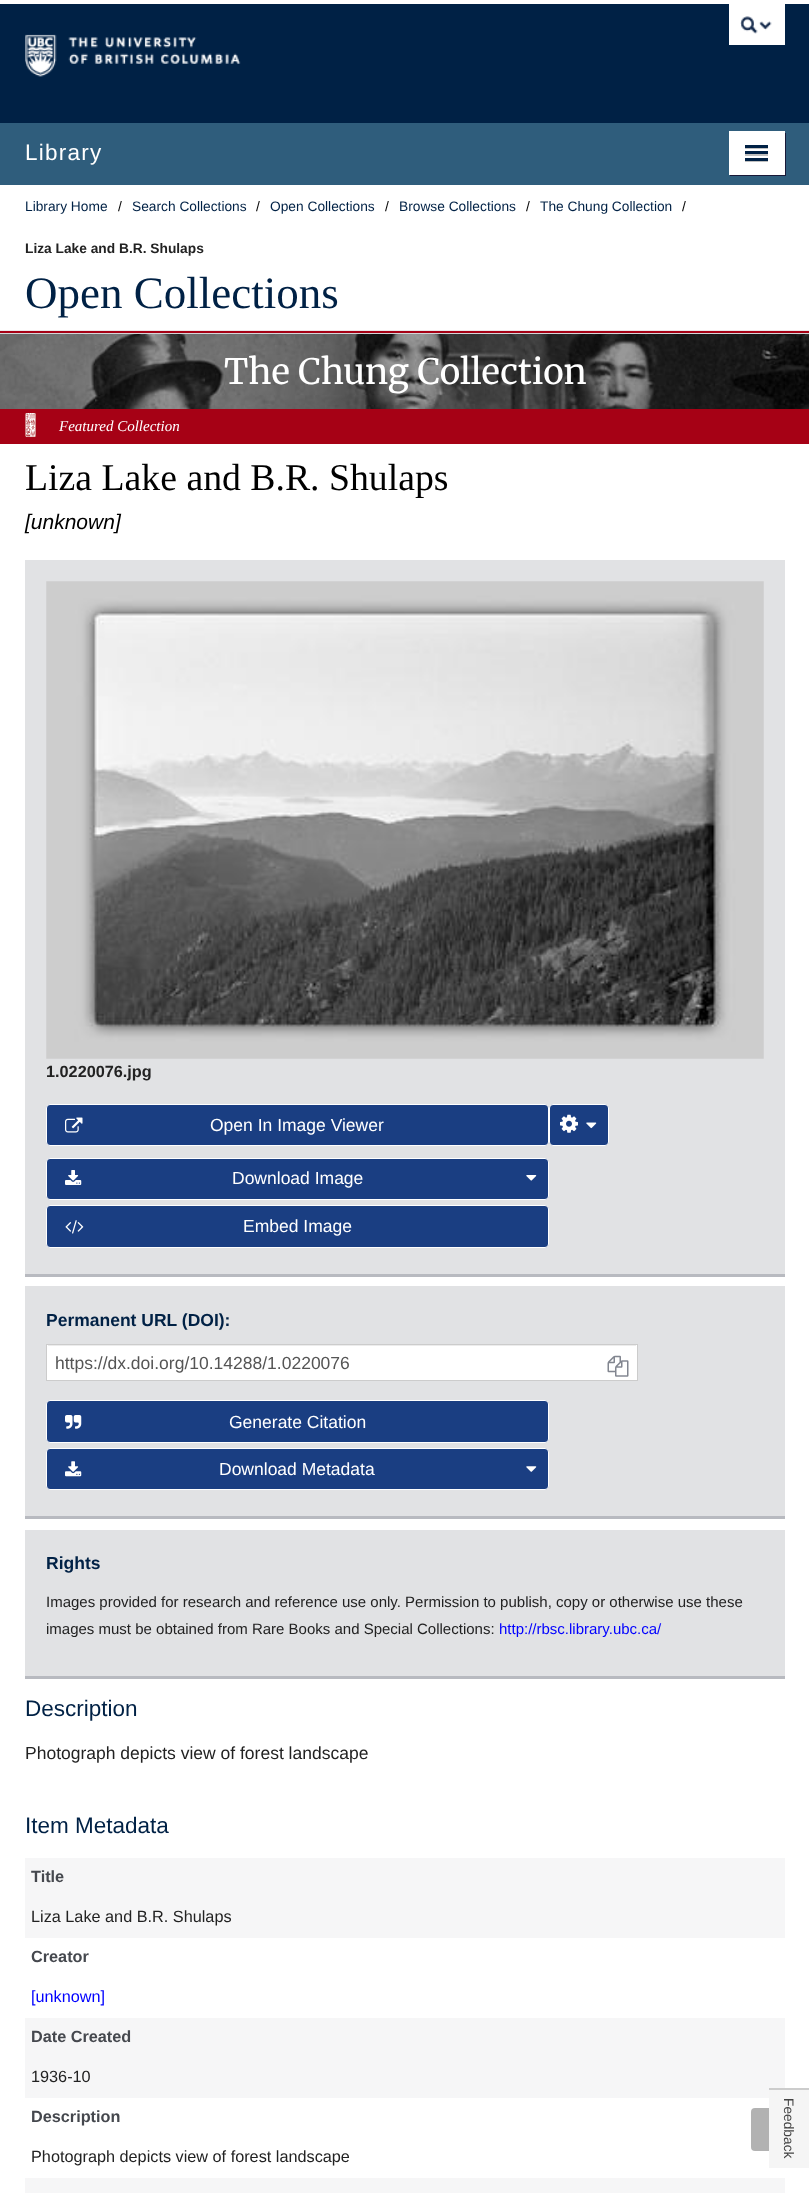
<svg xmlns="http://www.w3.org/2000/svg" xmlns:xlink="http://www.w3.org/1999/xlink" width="809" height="2193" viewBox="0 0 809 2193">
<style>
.cls-1{font:22.5px Liberation Sans;letter-spacing:1.25px;fill:#ffffff}
.cls-2{font:13.75px Liberation Sans;fill:#002145}
.cls-3{font:13.75px Liberation Sans;fill:#000000}
.cls-4{font:bold 13.75px Liberation Sans;fill:#222222}
.cls-5{font:45px Liberation Serif;fill:#002145}
.cls-6{font:35px Merriweather;fill:#ffffff}
.cls-7{font:italic 15px Liberation Serif;fill:#ffffff}
.cls-8{font:37.75px Liberation Serif;fill:#000000}
.cls-9{font:italic 21px Liberation Sans;fill:#000000}
.cls-10{font:bold 16.25px Liberation Sans;fill:#222222}
.cls-11{font:17.5px Liberation Sans;fill:#ffffff}
.cls-12{font:bold 17.5px Liberation Sans;fill:#002145}
.cls-13{font:17.5px Liberation Sans;fill:#555555}
.cls-14{font:15px Liberation Sans;fill:#222222}
.cls-15{font:15px Liberation Sans;fill:#0000ff}
.cls-16{font:22.5px Liberation Sans;fill:#002145}
.cls-17{font:17.5px Liberation Sans;fill:#222222}
.cls-18{font:bold 16.25px Liberation Sans;fill:#45484e}
.cls-19{font:16.25px Liberation Sans;fill:#222222}
.cls-20{font:16.25px Liberation Sans;fill:#0000ff}
.cls-21{font:13.75px Liberation Sans;fill:#444444}
</style>
<rect width="100%" height="100%" fill="#ffffff"/>
<rect fill="#002145" x="0" y="4" width="809" height="119"/>
<image xlink:href="image0.png" x="25" y="34" width="216" height="43"/>
<rect fill="#ffffff" x="729" y="4" width="56" height="41"/>
<image xlink:href="image1.png" x="740" y="16" width="32" height="18"/>
<rect fill="#2f5d7c" x="0" y="123" width="809" height="62"/>
<rect fill="#191938" filter="blur(0.5px)" x="730" y="133" width="56" height="43"/>
<rect fill="#ffffff" x="729" y="131" width="56" height="44"/>
<path fill="#bfbfbf" d="M745 147.5V149H768V146H767.5V147.5Z"/>
<rect fill="#002145" x="745" y="145" width="23" height="3"/>
<path fill="#bfbfbf" d="M745 154V156H768V153H767.5V154Z"/>
<rect fill="#002145" x="745" y="151" width="23" height="3"/>
<path fill="#bfbfbf" d="M745 160V162H768V159H767.5V160Z"/>
<rect fill="#002145" x="745" y="158" width="23" height="3"/>
<rect fill="#a60115" x="0" y="331" width="809" height="2"/>
<rect fill="#e9e9eb" x="0" y="330" width="809" height="1"/>
<rect fill="#d3d5d8" x="0" y="333" width="809" height="1"/>
<image xlink:href="image2.png" x="0" y="334" width="809" height="75"/>
<rect fill="#000000" fill-opacity="0.4" x="0" y="334" width="809" height="75"/>
<rect fill="#a60115" x="0" y="409" width="809" height="35"/>
<image xlink:href="image3.png" x="25" y="413" width="11" height="25"/>
<rect fill="#e1e2e4" x="25" y="560" width="760" height="714"/>
<rect fill="#b8bac0" x="25" y="1274" width="760" height="3"/>
<image xlink:href="image4.png" x="46" y="581" width="718" height="478"/>
<rect fill="#1a3e82" stroke="#ffffff" x="46.5" y="1104.5" width="502" height="41" rx="3.5"/>
<image xlink:href="image5.png" x="65" y="1117" width="18" height="16"/>
<rect fill="#1a3e82" stroke="#ffffff" x="549.5" y="1104.5" width="59" height="41" rx="3.5"/>
<image xlink:href="image6.png" x="560" y="1114" width="18" height="19"/>
<image xlink:href="image7.png" x="586" y="1122" width="11" height="7"/>
<rect fill="#1a3e82" stroke="#ffffff" x="46.5" y="1158.5" width="502" height="41" rx="3.5"/>
<image xlink:href="image8.png" x="65" y="1170" width="17" height="15"/>
<image xlink:href="image9.png" x="526" y="1175" width="11" height="6"/>
<rect fill="#1a3e82" stroke="#ffffff" x="46.5" y="1205.5" width="502" height="42" rx="3.5"/>
<image xlink:href="image10.png" x="65" y="1220" width="19" height="14"/>
<rect fill="#e1e2e4" x="25" y="1286" width="760" height="230"/>
<rect fill="#b8bac0" x="25" y="1516" width="760" height="3"/>
<rect fill="#ffffff" x="47" y="1345" width="590" height="35"/>
<rect fill="#ececec" x="48" y="1345" width="588" height="1"/>
<rect fill="none" stroke="#cccccc" x="46.5" y="1344.5" width="591" height="36"/>
<image xlink:href="image11.png" x="607" y="1355" width="22" height="22"/>
<rect fill="#1a3e82" stroke="#ffffff" x="46.5" y="1400.5" width="502" height="42" rx="3.5"/>
<image xlink:href="image12.png" x="65" y="1415" width="17" height="14"/>
<rect fill="#1a3e82" stroke="#ffffff" x="46.5" y="1448.5" width="502" height="41" rx="3.5"/>
<image xlink:href="image13.png" x="65" y="1461" width="17" height="16"/>
<image xlink:href="image14.png" x="526" y="1466" width="11" height="6"/>
<rect fill="#e1e2e4" x="25" y="1530" width="760" height="146"/>
<rect fill="#b8bac0" x="25" y="1676" width="760" height="3"/>
<rect fill="#f6f6f7" x="25" y="1858" width="760" height="80"/>
<rect fill="#f6f6f7" x="25" y="2018" width="760" height="80"/>
<rect fill="#f6f6f7" x="25" y="2178" width="760" height="15"/>
<rect fill="#000000" fill-opacity="0.3" filter="blur(0.5px)" x="751" y="2108" width="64" height="43" rx="4"/>
<path fill="#f5f5f5" d="M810 2091V2168H769V2088H808C809 2088 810 2089 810 2091Z"/>
<rect fill="#cccccc" x="769" y="2088" width="40" height="2"/>
<text class="cls-1" x="25" y="160">Library</text>
<text class="cls-2" x="25" y="211">Library Home</text>
<text class="cls-3" x="118" y="211">/</text>
<text class="cls-2" x="132" y="211">Search Collections</text>
<text class="cls-3" x="256" y="211">/</text>
<text class="cls-2" x="270" y="211">Open Collections</text>
<text class="cls-3" x="385" y="211">/</text>
<text class="cls-2" x="399" y="211">Browse Collections</text>
<text class="cls-3" x="526" y="211">/</text>
<text class="cls-2" x="540" y="211">The Chung Collection</text>
<text class="cls-3" x="682" y="211">/</text>
<text class="cls-4" x="25" y="253">Liza Lake and B.R. Shulaps</text>
<text class="cls-5" x="25" y="308">Open Collections</text>
<text class="cls-6" x="224" y="384">The Chung Collection</text>
<text class="cls-7" x="59" y="431">Featured Collection</text>
<text class="cls-8" x="25" y="490">Liza Lake and B.R. Shulaps</text>
<text class="cls-9" x="25" y="529">[unknown]</text>
<text class="cls-10" x="46" y="1077">1.0220076.jpg</text>
<text class="cls-11" x="210" y="1131">Open In Image Viewer</text>
<text class="cls-11" x="232" y="1184">Download Image</text>
<text class="cls-11" x="243" y="1232">Embed Image</text>
<text class="cls-12" x="46" y="1326">Permanent URL (DOI):</text>
<text class="cls-13" x="55" y="1369">https://dx.doi.org/10.14288/1.0220076</text>
<text class="cls-11" x="229" y="1428">Generate Citation</text>
<text class="cls-11" x="219" y="1475">Download Metadata</text>
<text class="cls-12" x="46" y="1569">Rights</text>
<text class="cls-14"><tspan x="46" y="1607">Images provided for research and reference use only. Permission to publish, copy or otherwise use these</tspan><tspan x="46" y="1634">images must be obtained from Rare Books and Special Collections:</tspan></text>
<text class="cls-15" x="499" y="1634">http://rbsc.library.ubc.ca/</text>
<text class="cls-16" x="25" y="1716">Description</text>
<text class="cls-17" x="25" y="1759">Photograph depicts view of forest landscape</text>
<text class="cls-16" x="25" y="1833">Item Metadata</text>
<text class="cls-18" x="31" y="1882">Title</text>
<text class="cls-19" x="31" y="1922">Liza Lake and B.R. Shulaps</text>
<text class="cls-18" x="31" y="1962">Creator</text>
<text class="cls-20" x="31" y="2002">[unknown]</text>
<text class="cls-18" x="31" y="2042">Date Created</text>
<text class="cls-19" x="31" y="2082">1936-10</text>
<text class="cls-18" x="31" y="2122">Description</text>
<text class="cls-19" x="31" y="2162">Photograph depicts view of forest landscape</text>
<text class="cls-21" x="784" y="2098" transform="rotate(90 784 2098)">Feedback</text>
</svg>
